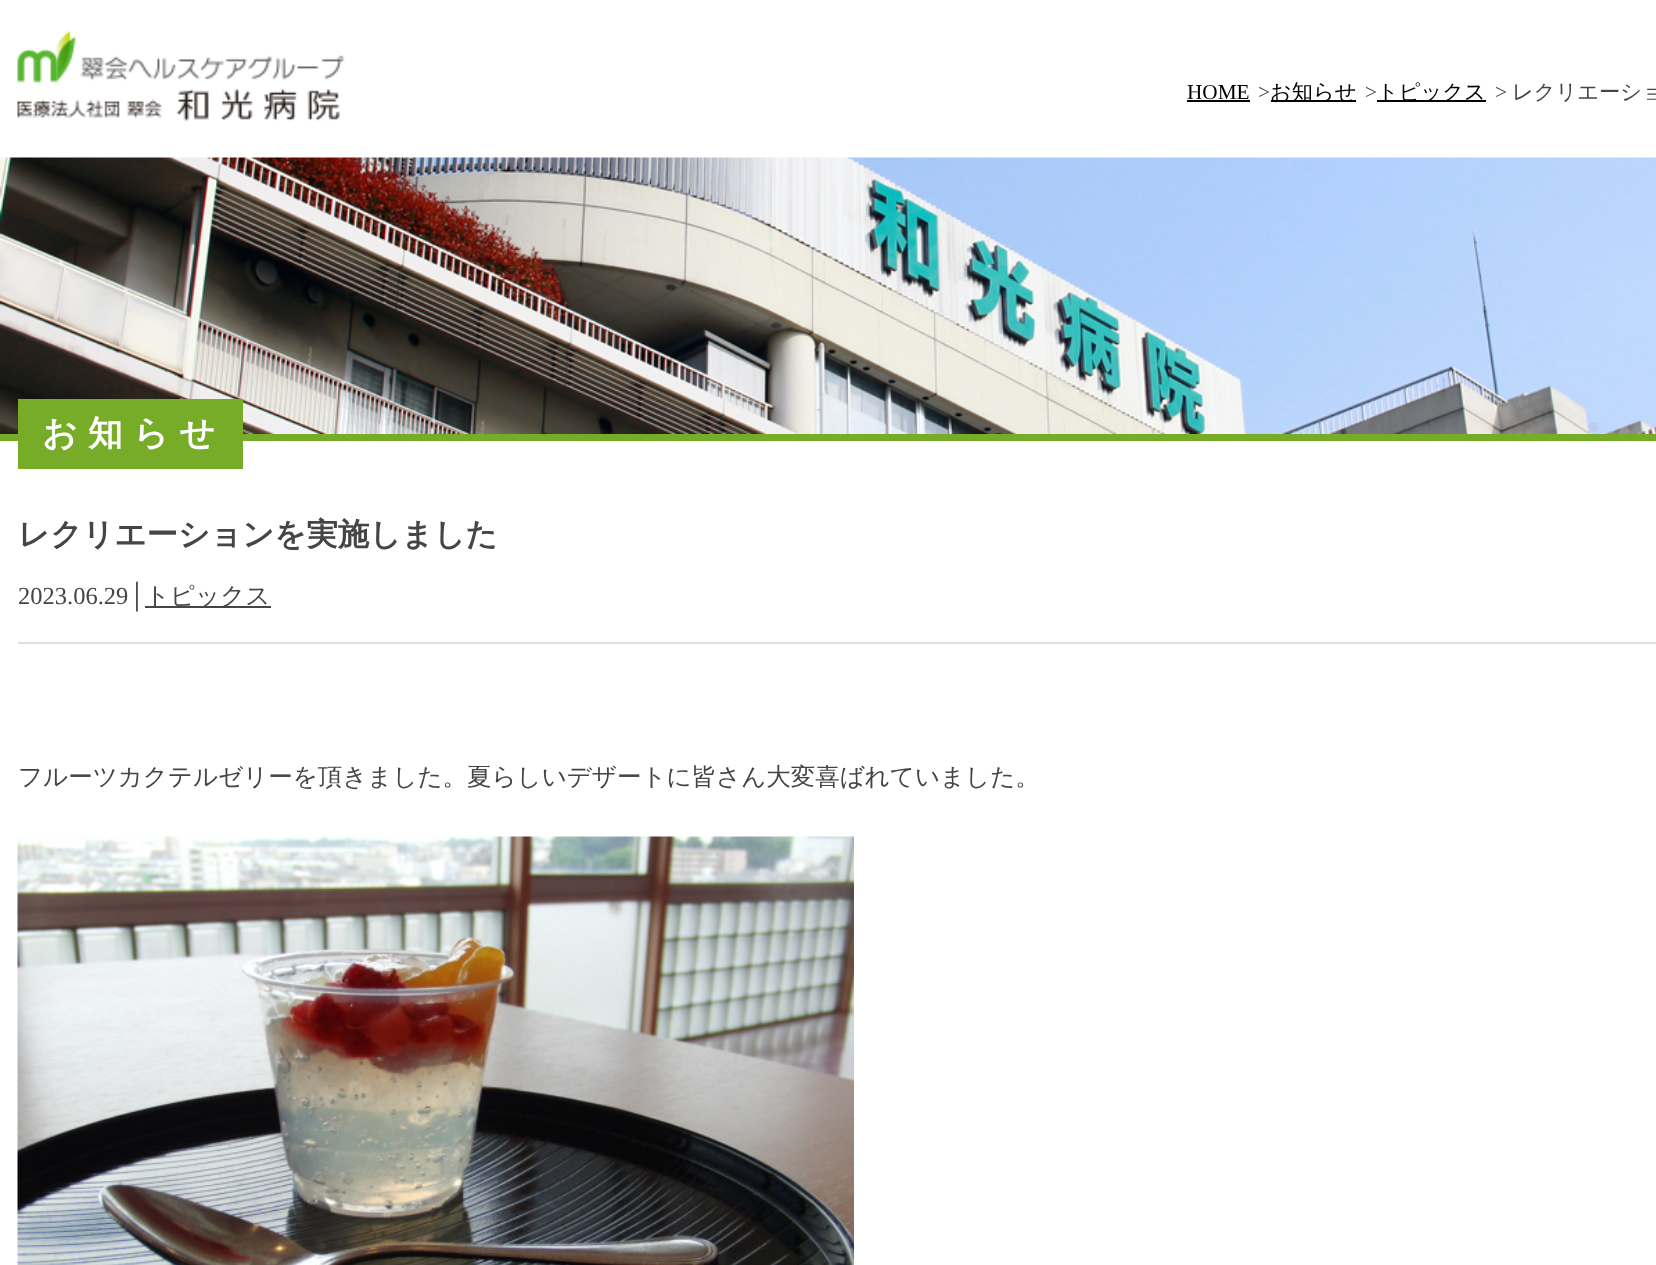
<svg xmlns="http://www.w3.org/2000/svg" xmlns:xlink="http://www.w3.org/1999/xlink" width="1656" height="1265" viewBox="0 0 1656 1265">
<style>
.cls-1{font:21.25px Liberation Serif;fill:#000000}
.cls-2{font:21.25px Liberation Serif;fill:#454545}
.cls-3{font:500 21.25px WenQuanYi Zen Hei;fill:#000000}
.cls-4{font:500 21.25px WenQuanYi Zen Hei;fill:#454545}
.cls-5{font:bold 34.75px WenQuanYi Zen Hei;letter-spacing:10.5px;fill:#ffffff}
.cls-6{font:bold 31.4px WenQuanYi Zen Hei;fill:#454545}
.cls-7{font:24.5px Liberation Serif;fill:#454545}
.cls-8{font:500 24.5px WenQuanYi Zen Hei;fill:#454545}
</style>
<rect width="100%" height="100%" fill="#ffffff"/>
<image xlink:href="image0.png" x="17" y="31" width="328" height="91"/>
<rect fill="#000000" x="1187" y="100" width="63" height="2"/>
<rect fill="#000000" x="1271" y="100" width="85" height="2"/>
<rect fill="#000000" x="1377" y="100" width="109" height="2"/>
<rect fill="#76ac28" x="0" y="434" width="1656" height="7"/>
<image xlink:href="image1.png" x="0" y="157" width="1656" height="277"/>
<rect fill="#76ac28" x="18" y="399" width="225" height="70"/>
<rect fill="#e0e0e0" x="18" y="642" width="1638" height="2"/>
<rect fill="#454545" x="145" y="606" width="126" height="2"/>
<image xlink:href="image2.png" x="17" y="836" width="837" height="429"/>
<text class="cls-1" x="1187" y="99">HOME</text>
<text class="cls-2" x="1258" y="99">&gt;</text>
<text class="cls-3" x="1270" y="99">お知らせ</text>
<text class="cls-2" x="1365" y="99">&gt;</text>
<text class="cls-3" x="1377" y="99">トピックス</text>
<text class="cls-2" x="1495" y="99">&gt;</text>
<text class="cls-4" x="1512" y="99">レクリエーショ</text>
<text class="cls-5" x="42" y="445">お知らせ</text>
<text class="cls-6" x="18" y="545">レクリエーションを実施しました</text>
<text class="cls-7" x="18" y="604">2023.06.29│</text>
<text class="cls-8" x="145" y="604">トピックス</text>
<text class="cls-8" x="18" y="785">フルーツカクテルゼリーを頂きました。夏らしいデザートに皆さん大変喜ばれていました。</text>
</svg>
